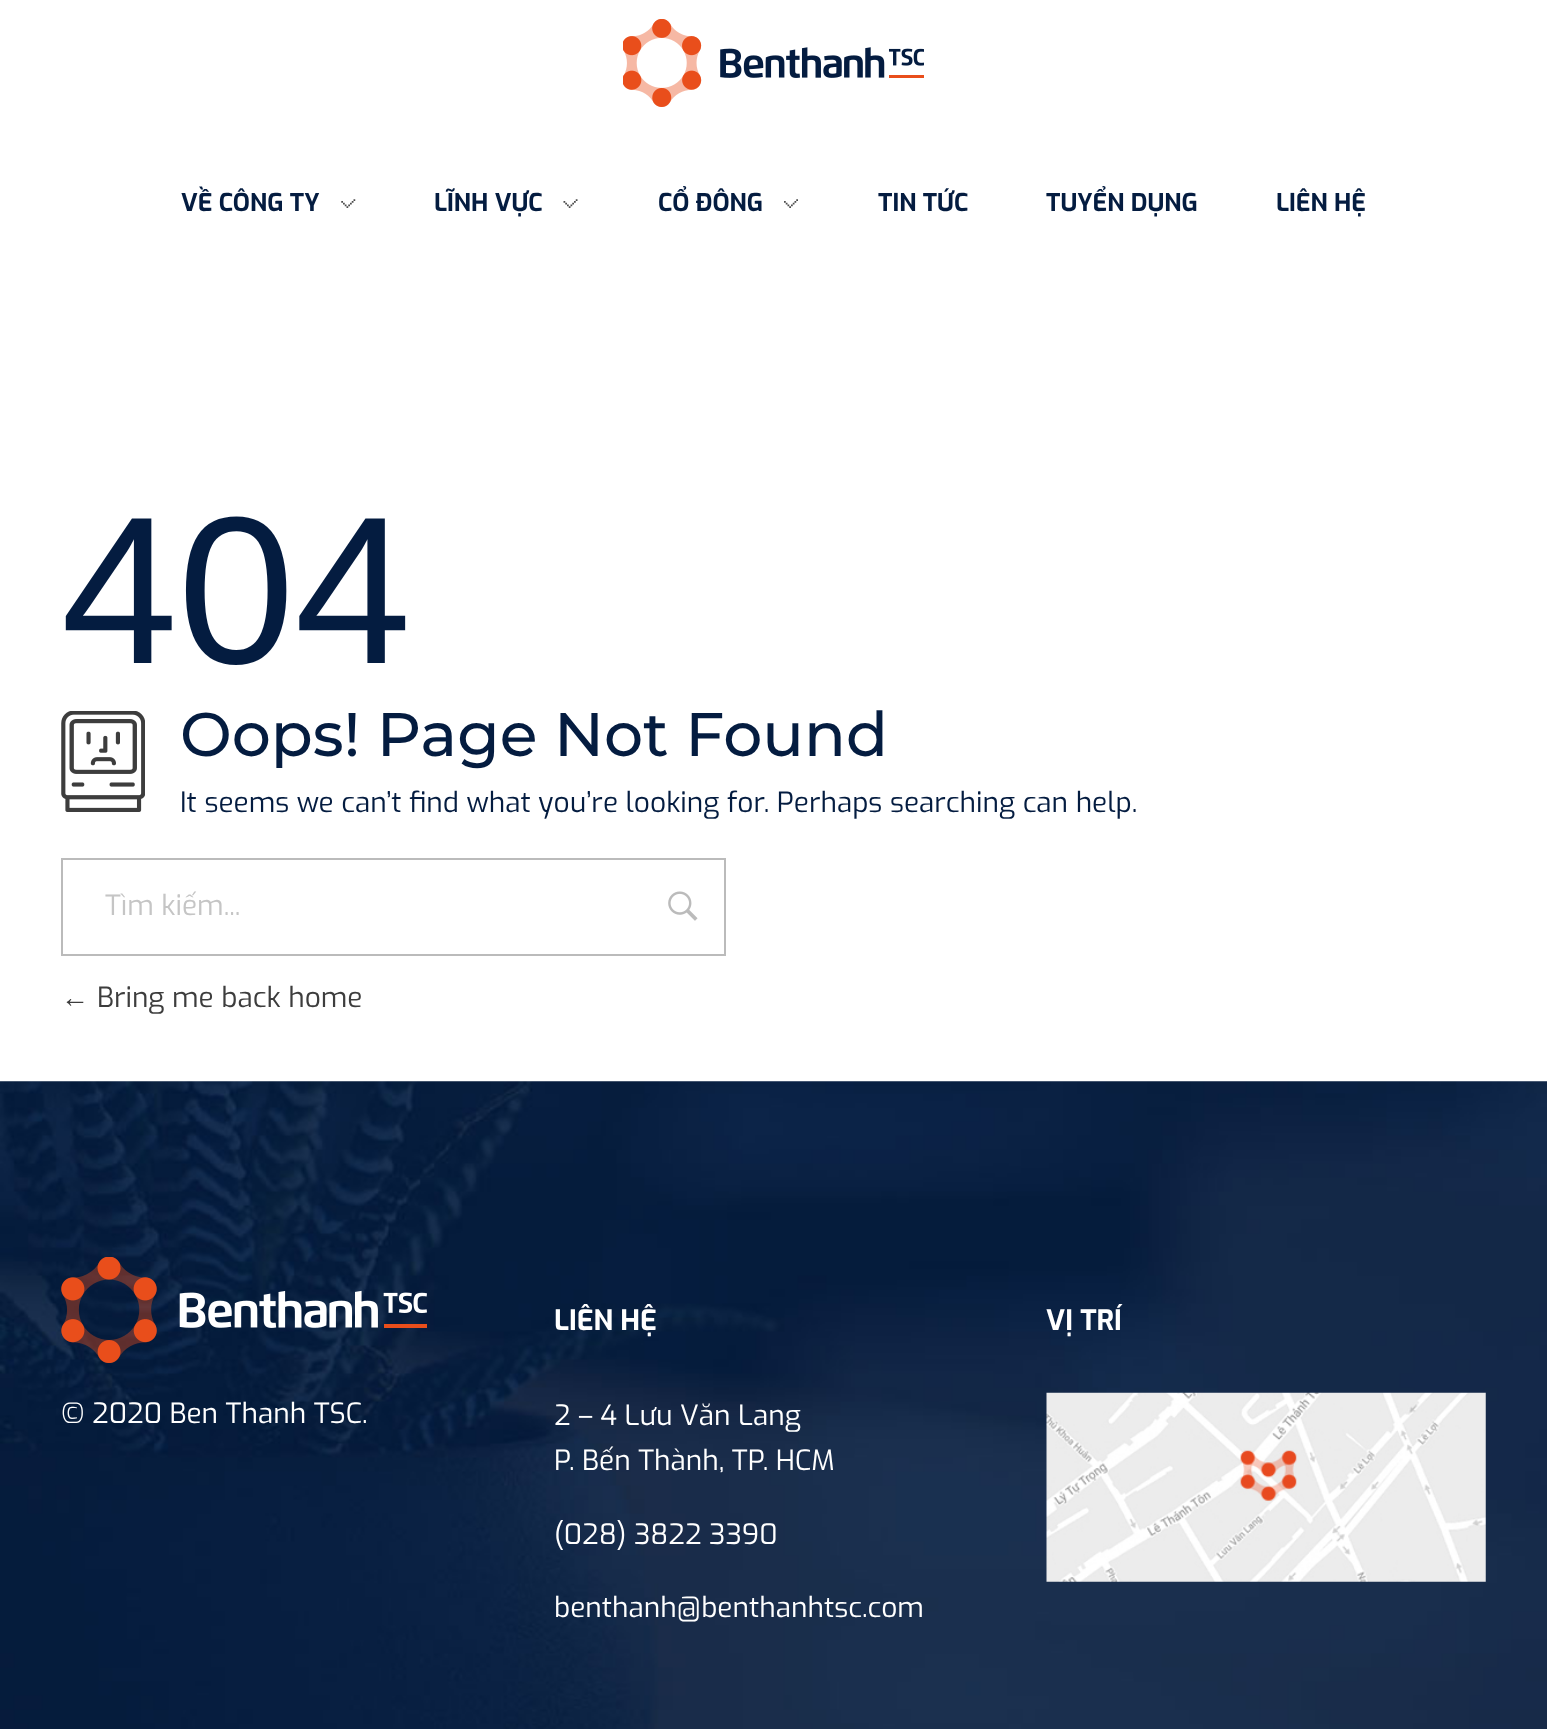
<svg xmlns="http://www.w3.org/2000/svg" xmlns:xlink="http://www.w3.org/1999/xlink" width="1547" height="1729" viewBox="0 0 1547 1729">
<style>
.cls-1{font:bold 24.5px Exo;fill:#041c40}
.cls-2{font:210px Liberation Sans;fill:#041c40}
.cls-3{font:500 61.6px Montserrat;fill:#041c40}
.cls-4{font:28px Exo;fill:#041c40}
.cls-5{font:28px Exo;fill:#c5c5c5}
.cls-6{font:28px Liberation Sans;fill:#3d3d3d}
.cls-7{font:28px Exo;fill:#3d3d3d}
.cls-8{font:bold 28px Exo;fill:#ffffff}
.cls-9{font:28px Exo;fill:#ffffff}
</style>
<rect width="100%" height="100%" fill="#ffffff"/>
<image xlink:href="image0.png" x="623" y="19" width="301" height="88"/>
<image xlink:href="image1.png" x="341" y="199" width="15" height="9"/>
<image xlink:href="image2.png" x="563" y="199" width="15" height="9"/>
<image xlink:href="image3.png" x="784" y="199" width="14" height="9"/>
<image xlink:href="image4.png" x="61" y="711" width="84" height="101"/>
<rect fill="none" stroke="#bbbbbb" stroke-width="2" x="62" y="859" width="663" height="96"/>
<image xlink:href="image5.png" x="668" y="891" width="30" height="30"/>
<image xlink:href="image6.png" x="0" y="1081" width="1547" height="648"/>
<image xlink:href="image7.png" x="1046" y="1392" width="440" height="190"/>
<image xlink:href="image8.png" x="61" y="1257" width="366" height="106"/>
<text class="cls-1" x="181" y="211">VỀ CÔNG TY</text>
<text class="cls-1" x="434" y="211">LĨNH VỰC</text>
<text class="cls-1" x="658" y="211">CỔ ĐÔNG</text>
<text class="cls-1" x="878" y="211">TIN TỨC</text>
<text class="cls-1" x="1046" y="211">TUYỂN DỤNG</text>
<text class="cls-1" x="1276" y="211">LIÊN HỆ</text>
<text class="cls-2" x="61" y="663">404</text>
<text class="cls-3" x="180" y="756">Oops! Page Not Found</text>
<text class="cls-4" x="180" y="812">It seems we can’t find what you’re looking for. Perhaps searching can help.</text>
<text class="cls-5" x="105" y="915">Tìm kiếm...</text>
<text class="cls-6" x="61" y="1007">←</text>
<text class="cls-7" x="97" y="1007">Bring me back home</text>
<text class="cls-8" x="554" y="1330">LIÊN HỆ</text>
<text class="cls-9"><tspan x="554" y="1425">2 – 4 Lưu Văn Lang</tspan><tspan x="554" y="1470">P. Bến Thành, TP. HCM</tspan></text>
<text class="cls-9" x="554" y="1544">(028) 3822 3390</text>
<text class="cls-9" x="554" y="1617">benthanh@benthanhtsc.com</text>
<text class="cls-8" x="1046" y="1330">VỊ TRÍ</text>
<text class="cls-9" x="61" y="1423">© 2020 Ben Thanh TSC.</text>
</svg>
